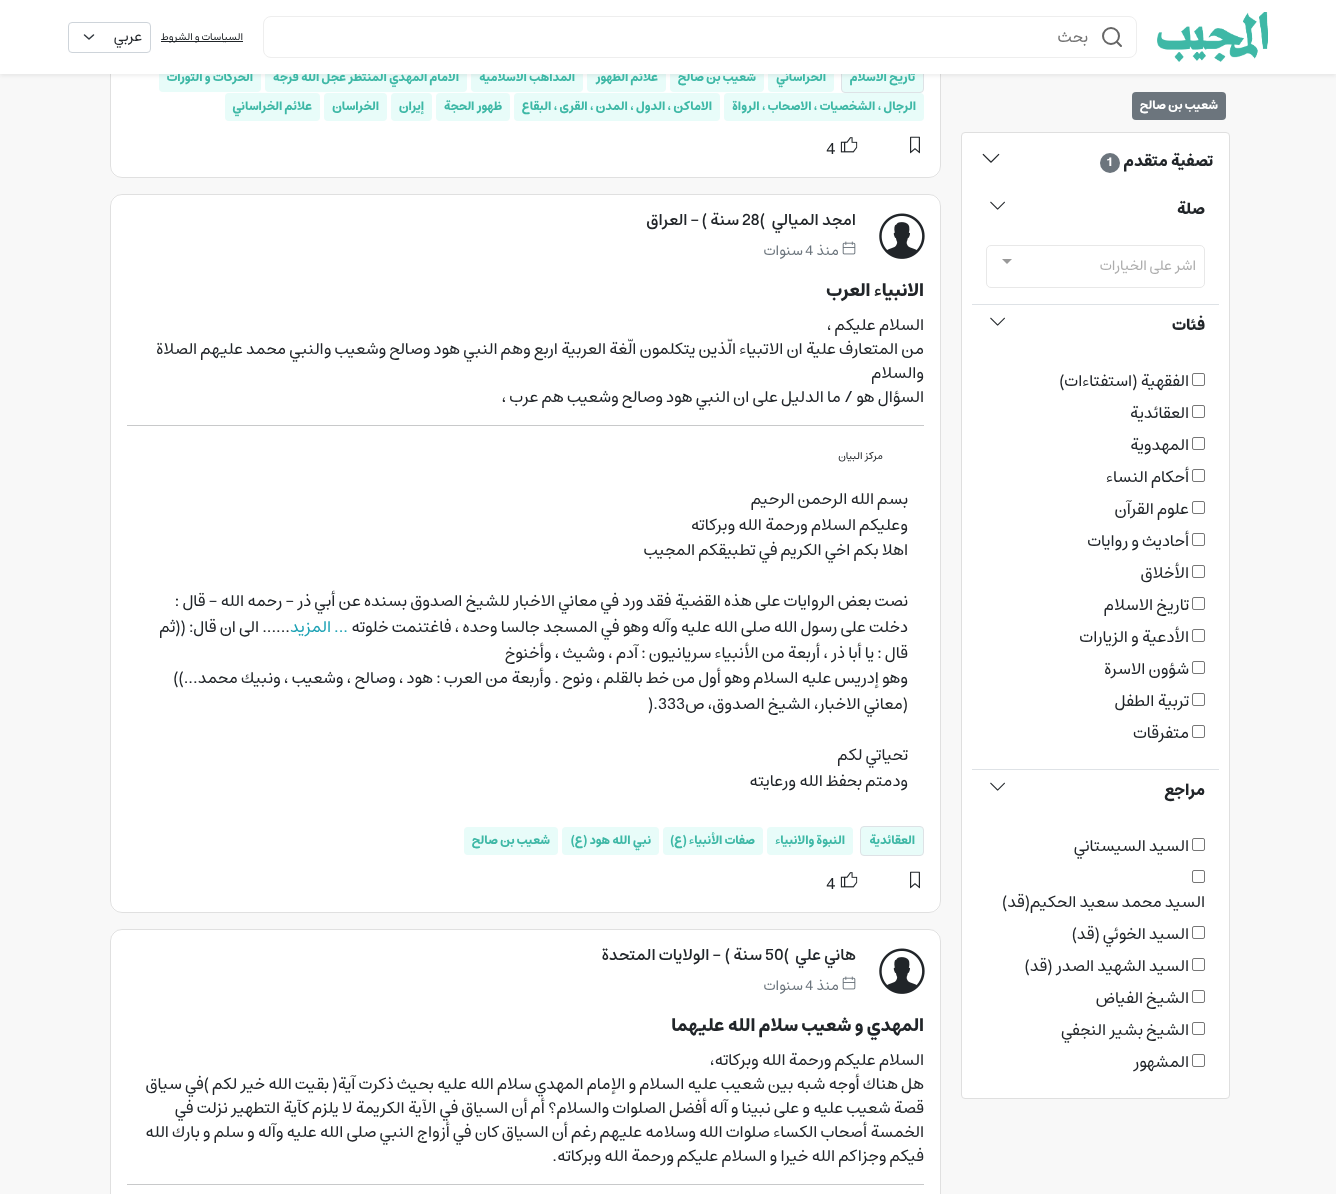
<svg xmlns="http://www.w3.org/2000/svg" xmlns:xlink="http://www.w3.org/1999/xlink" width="1336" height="1194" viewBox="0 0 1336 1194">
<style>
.cls-1{font:bold 12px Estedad;direction:rtl;fill:#ffffff}
.cls-2{font:bold 16px Estedad;direction:rtl;fill:#212529}
.cls-3{font:bold 12px Estedad;fill:#ffffff}
.cls-4{font:14px Estedad;direction:rtl;fill:#adadad}
.cls-5{font:16px Estedad;direction:rtl;fill:#212529}
.cls-6{font:bold 12px Estedad;direction:rtl;fill:#3eb8a6}
.cls-7{font:16px Estedad;direction:rtl;fill:#757575}
.cls-8{font:14px Estedad;direction:rtl;fill:#212529}
.cls-9{font:10px Estedad;direction:rtl;fill:#212529}
.cls-10{font:16px Estedad;fill:#212529}
.cls-11{font:500 16px Estedad;direction:rtl;fill:#212529}
.cls-12{font:500 16px Estedad;fill:#212529}
.cls-13{font:14px Estedad;direction:rtl;fill:#6c757d}
.cls-14{font:14px Estedad;fill:#6c757d}
.cls-15{font:bold 18px Estedad;direction:rtl;fill:#212529}
.cls-16{font:16px Estedad;direction:rtl;fill:#1da2b5}
</style>
<rect width="100%" height="100%" fill="#f8f8f8"/>
<rect fill="#ffffff" x="110" y="-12" width="831" height="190" rx="12"/>
<rect fill="none" stroke="#000000" stroke-opacity="0.12" x="110.5" y="-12.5" width="830" height="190" rx="11.5"/>
<rect fill="#e8fcf9" stroke="#dee2e6" x="841.5" y="63.5" width="82" height="29" rx="3.5"/>
<rect fill="#e8fcf9" x="768" y="64" width="66" height="28" rx="4"/>
<rect fill="#e8fcf9" x="670" y="64" width="94" height="28" rx="4"/>
<rect fill="#e8fcf9" x="587" y="64" width="79" height="28" rx="4"/>
<rect fill="#e8fcf9" x="471" y="64" width="112" height="28" rx="4"/>
<rect fill="#e8fcf9" x="265" y="64" width="202" height="28" rx="4"/>
<rect fill="#e8fcf9" x="159" y="64" width="102" height="28" rx="4"/>
<rect fill="#000000" fill-opacity="0.07" filter="blur(2px)" x="0" y="2" width="1336" height="74"/>
<rect fill="#6c757d" x="1132" y="92" width="94" height="28" rx="4"/>
<rect fill="#ffffff" stroke="#dfdfdf" x="961.5" y="132.5" width="268" height="966" rx="3.5"/>
<circle fill="#6c757d" cx="1110" cy="163" r="10"/>
<image xlink:href="image1.png" x="982" y="153" width="18" height="10"/>
<rect fill="#dee2e6" x="972" y="304" width="247" height="1"/>
<image xlink:href="image2.png" x="990" y="201" width="15" height="9"/>
<rect fill="none" stroke="#e8e8e8" x="986.5" y="245.5" width="218" height="42" rx="4.5"/>
<path fill="#999999" d="M1002 259H1012L1007 264Z"/>
<rect fill="#dee2e6" x="972" y="769" width="247" height="1"/>
<image xlink:href="image2.png" x="990" y="317" width="15" height="9"/>
<rect fill="none" stroke="#767676" x="1192.5" y="373.5" width="12" height="12" rx="1.5"/>
<rect fill="none" stroke="#767676" x="1192.5" y="405.5" width="12" height="12" rx="1.5"/>
<rect fill="none" stroke="#767676" x="1192.5" y="437.5" width="12" height="12" rx="1.5"/>
<rect fill="none" stroke="#767676" x="1192.5" y="469.5" width="12" height="12" rx="1.5"/>
<rect fill="none" stroke="#767676" x="1192.5" y="501.5" width="12" height="12" rx="1.5"/>
<rect fill="none" stroke="#767676" x="1192.5" y="533.5" width="12" height="12" rx="1.5"/>
<rect fill="none" stroke="#767676" x="1192.5" y="565.5" width="12" height="12" rx="1.5"/>
<rect fill="none" stroke="#767676" x="1192.5" y="597.5" width="12" height="12" rx="1.5"/>
<rect fill="none" stroke="#767676" x="1192.5" y="629.5" width="12" height="12" rx="1.5"/>
<rect fill="none" stroke="#767676" x="1192.5" y="661.5" width="12" height="12" rx="1.5"/>
<rect fill="none" stroke="#767676" x="1192.5" y="693.5" width="12" height="12" rx="1.5"/>
<rect fill="none" stroke="#767676" x="1192.5" y="725.5" width="12" height="12" rx="1.5"/>
<image xlink:href="image2.png" x="990" y="782" width="15" height="9"/>
<rect fill="none" stroke="#767676" x="1192.5" y="838.5" width="12" height="12" rx="1.5"/>
<rect fill="none" stroke="#767676" x="1192.5" y="870.5" width="12" height="12" rx="1.5"/>
<rect fill="none" stroke="#767676" x="1192.5" y="926.5" width="12" height="12" rx="1.5"/>
<rect fill="none" stroke="#767676" x="1192.5" y="958.5" width="12" height="12" rx="1.5"/>
<rect fill="none" stroke="#767676" x="1192.5" y="990.5" width="12" height="12" rx="1.5"/>
<rect fill="none" stroke="#767676" x="1192.5" y="1022.5" width="12" height="12" rx="1.5"/>
<rect fill="none" stroke="#767676" x="1192.5" y="1054.5" width="12" height="12" rx="1.5"/>
<rect fill="#e8fcf9" x="724" y="93" width="200" height="28" rx="4"/>
<rect fill="#e8fcf9" x="514" y="93" width="206" height="28" rx="4"/>
<rect fill="#e8fcf9" x="436" y="93" width="74" height="28" rx="4"/>
<rect fill="#e8fcf9" x="391" y="93" width="41" height="28" rx="4"/>
<rect fill="#e8fcf9" x="324" y="93" width="63" height="28" rx="4"/>
<rect fill="#e8fcf9" x="225" y="93" width="95" height="28" rx="4"/>
<image xlink:href="image3.png" x="910" y="136" width="10" height="18"/>
<image xlink:href="image4.png" x="840" y="137" width="18" height="16"/>
<rect fill="#ffffff" x="110" y="194" width="831" height="719" rx="12"/>
<rect fill="none" stroke="#000000" stroke-opacity="0.12" x="110.5" y="194.5" width="830" height="718" rx="11.5"/>
<image xlink:href="image5.png" x="879" y="213" width="46" height="46"/>
<image xlink:href="image6.png" x="842" y="241" width="14" height="14"/>
<rect fill="#c8c9ca" x="127" y="425" width="797" height="1"/>
<rect fill="#e8fcf9" stroke="#dee2e6" x="860.5" y="826.5" width="63" height="29" rx="3.5"/>
<rect fill="#e8fcf9" x="767" y="827" width="86" height="28" rx="4"/>
<rect fill="#e8fcf9" x="663" y="827" width="100" height="28" rx="4"/>
<rect fill="#e8fcf9" x="562" y="827" width="97" height="28" rx="4"/>
<rect fill="#e8fcf9" x="464" y="827" width="94" height="28" rx="4"/>
<image xlink:href="image3.png" x="910" y="871" width="10" height="18"/>
<image xlink:href="image4.png" x="840" y="872" width="18" height="16"/>
<rect fill="#ffffff" x="110" y="929" width="831" height="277" rx="12"/>
<rect fill="none" stroke="#000000" stroke-opacity="0.12" x="110.5" y="929.5" width="830" height="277" rx="11.5"/>
<image xlink:href="image5.png" x="879" y="948" width="46" height="46"/>
<image xlink:href="image6.png" x="842" y="976" width="14" height="14"/>
<rect fill="#c8c9ca" x="127" y="1184" width="797" height="1"/>
<text class="cls-1" x="1218" y="109">شعيب بن صالح</text>
<text class="cls-2" x="1213" y="166">تصفية متقدم</text>
<text class="cls-3" x="1107" y="166">1</text>
<text class="cls-2" x="1205" y="214">صلة</text>
<text class="cls-4" x="1196" y="270">اشر علی الخیارات</text>
<text class="cls-2" x="1205" y="330">فئات</text>
<text class="cls-5" x="1189" y="386">الفقهية (استفتاءات)</text>
<text class="cls-5" x="1189" y="418">العقائدية</text>
<text class="cls-5" x="1189" y="450">المهدوية</text>
<text class="cls-5" x="1189" y="482">أحكام النساء</text>
<text class="cls-5" x="1189" y="514">علوم القرآن</text>
<text class="cls-5" x="1189" y="546">أحاديث و روايات</text>
<text class="cls-5" x="1189" y="578">الأخلاق</text>
<text class="cls-5" x="1189" y="610">تاريخ الاسلام</text>
<text class="cls-5" x="1189" y="642">الأدعية و الزيارات</text>
<text class="cls-5" x="1189" y="674">شؤون الاسرة</text>
<text class="cls-5" x="1189" y="706">تربية الطفل</text>
<text class="cls-5" x="1189" y="738">متفرقات</text>
<text class="cls-2" x="1205" y="795">مراجع</text>
<text class="cls-5" x="1189" y="851">السيد السيستاني</text>
<text class="cls-5" x="1205" y="907">السيد محمد سعيد الحكيم(قد)</text>
<text class="cls-5" x="1189" y="939">السيد الخوئي (قد)</text>
<text class="cls-5" x="1189" y="971">السيد الشهيد الصدر (قد)</text>
<text class="cls-5" x="1189" y="1003">الشيخ الفياض</text>
<text class="cls-5" x="1189" y="1035">الشيخ بشير النجفي</text>
<text class="cls-5" x="1189" y="1067">المشهور</text>
<text class="cls-6" x="915" y="81">تاريخ الاسلام</text>
<text class="cls-6" x="826" y="81">الخراساني</text>
<text class="cls-6" x="756" y="81">شعيب بن صالح</text>
<text class="cls-6" x="658" y="81">علائم الظهور</text>
<text class="cls-6" x="575" y="81">المذاهب الاسلامية</text>
<text class="cls-6" x="459" y="81">الامام المهدي المنتظر عجل الله فرجه</text>
<text class="cls-6" x="253" y="81">الحركات و الثورات</text>
<rect fill="#ffffff" x="0" y="0" width="1336" height="74"/>
<circle fill="none" stroke="#666666" stroke-width="2" cx="1111" cy="36" r="8"/>
<path fill="none" stroke="#666666" stroke-width="2" stroke-linecap="round" stroke-linejoin="round" d="M1121 46L1117 42"/>
<rect fill="none" stroke="#eeeeee" x="263.5" y="16.5" width="873" height="41" rx="7.5"/>
<text class="cls-7" x="1088" y="42">بحث</text>
<path fill="none" stroke="#343a40" stroke-width="1.5" stroke-linecap="round" stroke-linejoin="round" d="M84.5 35L89 39L93.5 35"/>
<rect fill="none" stroke="#ced4da" x="68.5" y="22.5" width="82" height="30" rx="3.5"/>
<text class="cls-8" x="142" y="41">عربي</text>
<rect fill="#212529" x="161" y="41" width="82" height="1"/>
<text class="cls-9" x="243" y="40">السیاسات و الشروط</text>
<image xlink:href="image0.png" x="1157" y="12" width="111" height="50"/>
<text class="cls-6" x="916" y="110">الرجال ، الشخصيات ، الاصحاب ، الرواة</text>
<text class="cls-6" x="712" y="110">الاماكن ، الدول ، المدن ، القرى ، البقاع</text>
<text class="cls-6" x="502" y="110">ظهور الحجة</text>
<text class="cls-6" x="424" y="110">إيران</text>
<text class="cls-6" x="379" y="110">الخراسان</text>
<text class="cls-6" x="312" y="110">علائم الخراساني</text>
<text class="cls-10" x="826" y="154">4</text>
<text class="cls-11" x="856" y="225">امجد الميالي</text>
<text class="cls-12" x="742" y="225">28(</text>
<text class="cls-11" x="739" y="225">سنة )</text>
<text class="cls-11" x="699" y="225">- العراق</text>
<text class="cls-13" x="839" y="255">منذ</text>
<text class="cls-14" x="805" y="255">4</text>
<text class="cls-13" x="803" y="255">سنوات</text>
<text class="cls-15" x="924" y="296">الانبياء العرب</text>
<text class="cls-5"><tspan x="924" y="330">السلام عليكم ،</tspan><tspan x="924" y="354">من المتعارف علية ان الاتبياء الّذين يتكلمون الّغة العربية اربع وهم النبي هود وصالح وشعيب والنبي محمد عليهم الصلاة</tspan><tspan x="924" y="378">والسلام</tspan><tspan x="924" y="402">السؤال هو / ما الدليل على ان النبي هود وصالح وشعيب هم عرب ،</tspan></text>
<text class="cls-9" x="883" y="459">مركز البيان</text>
<text class="cls-5"><tspan x="908" y="504">بسم الله الرحمن الرحيم</tspan><tspan x="908" y="530">وعليكم السلام ورحمة الله وبركاته</tspan><tspan x="908" y="555">اهلا بكم اخي الكريم في تطبيقكم المجيب</tspan></text>
<text class="cls-5"><tspan x="908" y="606">نصت بعض الروايات على هذه القضية فقد ورد في معاني الاخبار للشيخ الصدوق بسنده عن أبي ذر - رحمه الله - قال :</tspan><tspan x="908" y="632">دخلت على رسول الله صلى الله عليه وآله وهو في المسجد جالسا وحده ، فاغتنمت خلوته</tspan></text>
<text class="cls-16" x="348" y="632">... المزید</text>
<text class="cls-5" x="290" y="632">...... الى ان قال: ((ثم</text>
<text class="cls-5"><tspan x="908" y="658">قال : يا أبا ذر ، أربعة من الأنبياء سريانيون : آدم ، وشيث ، وأخنوخ</tspan><tspan x="908" y="683">وهو إدريس عليه السلام وهو أول من خط بالقلم ، ونوح . وأربعة من العرب : هود ، وصالح ، وشعيب ، ونبيك محمد...))</tspan><tspan x="908" y="709">(معاني الاخبار، الشيخ الصدوق، ص</tspan></text>
<text class="cls-10" x="648" y="709">).333</text>
<text class="cls-5"><tspan x="908" y="760">تحياتي لكم</tspan><tspan x="908" y="786">ودمتم بحفظ الله ورعايته</tspan></text>
<text class="cls-6" x="915" y="844">العقائدية</text>
<text class="cls-6" x="845" y="844">النبوة والانبياء</text>
<text class="cls-6" x="755" y="844">صفات الأنبياء (ع)</text>
<text class="cls-6" x="651" y="844">نبي الله هود (ع)</text>
<text class="cls-6" x="550" y="844">شعيب بن صالح</text>
<text class="cls-10" x="826" y="889">4</text>
<text class="cls-11" x="856" y="960">هاني علي</text>
<text class="cls-12" x="765" y="960">50(</text>
<text class="cls-11" x="762" y="960">سنة )</text>
<text class="cls-11" x="721" y="960">- الولايات المتحدة</text>
<text class="cls-13" x="839" y="990">منذ</text>
<text class="cls-14" x="805" y="990">4</text>
<text class="cls-13" x="803" y="990">سنوات</text>
<text class="cls-15" x="924" y="1031">المهدي و شعيب سلام الله عليهما</text>
<text class="cls-5"><tspan x="924" y="1065">السلام عليكم ورحمة الله وبركاته،</tspan><tspan x="924" y="1089">هل هناك أوجه شبه بين شعيب عليه السلام و الإمام المهدي سلام الله عليه بحيث ذكرت آية( بقيت الله خير لكم )في سياق</tspan><tspan x="924" y="1113">قصة شعيب عليه و على نبينا و آله أفضل الصلوات والسلام؟ أم أن السياق في الآية الكريمة لا يلزم كآية التطهير نزلت في</tspan><tspan x="924" y="1137">الخمسة أصحاب الكساء صلوات الله وسلامه عليهم رغم أن السياق كان في أزواج النبي صلى الله عليه وآله و سلم و بارك الله</tspan><tspan x="924" y="1161">فيكم وجزاكم الله خيرا و السلام عليكم ورحمة الله وبركاته.</tspan></text>
</svg>
